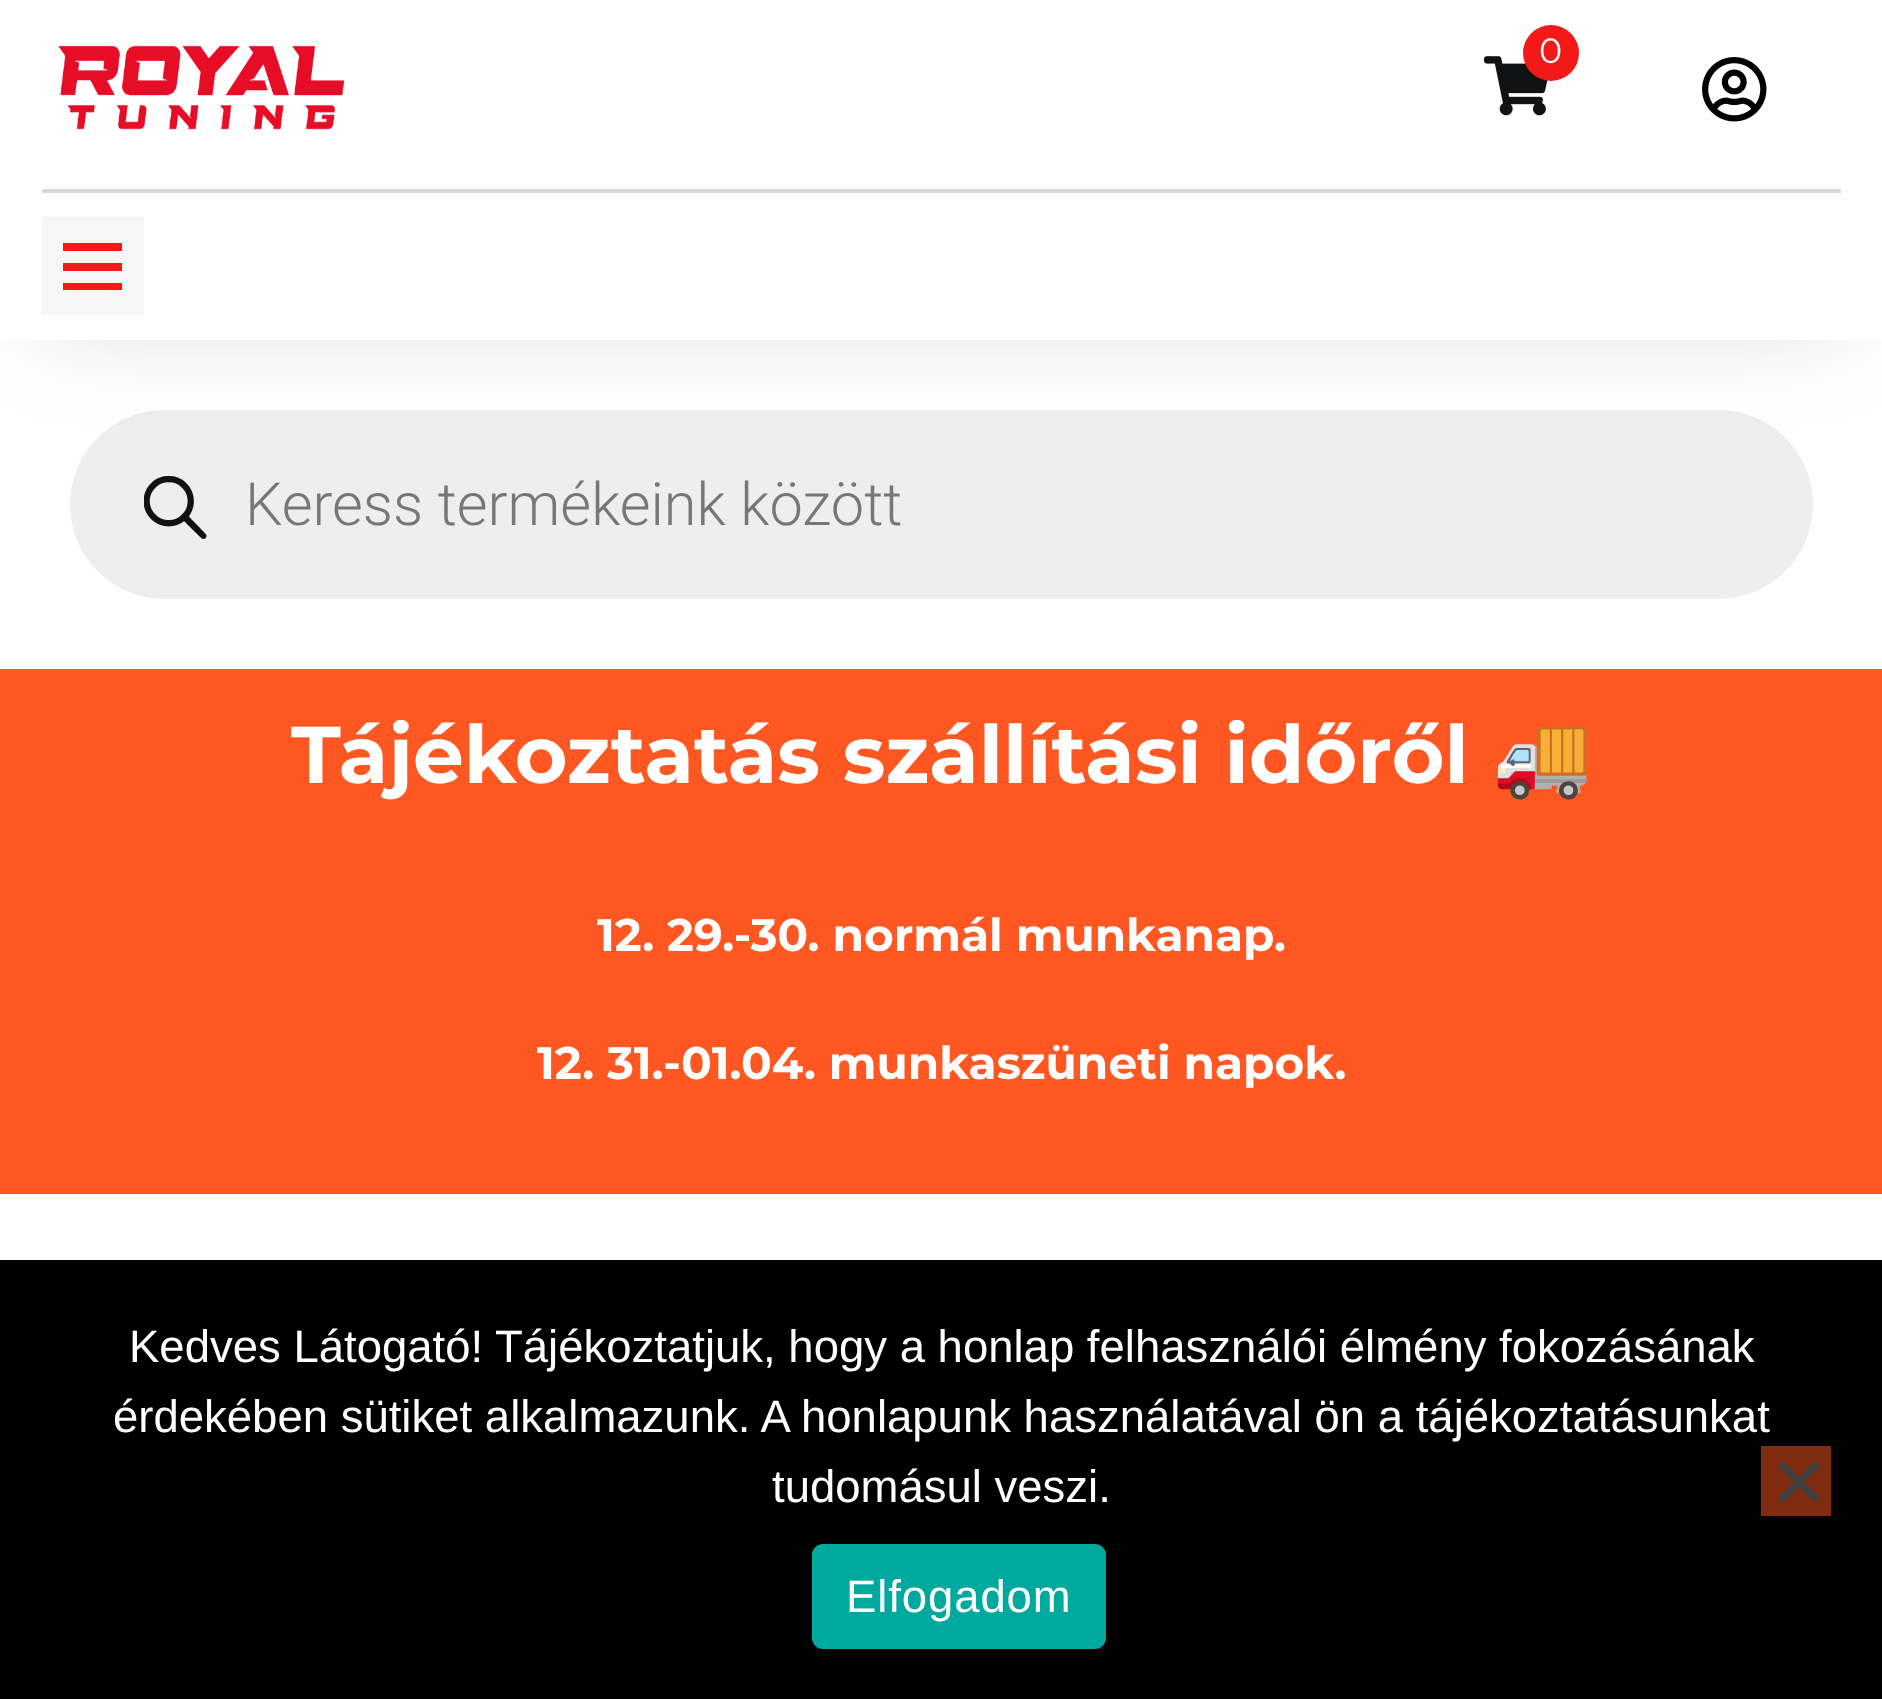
<svg xmlns="http://www.w3.org/2000/svg" xmlns:xlink="http://www.w3.org/1999/xlink" width="1882" height="1699" viewBox="0 0 1882 1699">
<style>
.cls-1{font:35px Montserrat;fill:#ffffff}
.cls-2{font:300 59.5px Roboto;fill:#777777}
.cls-3{font:bold 80.5px Montserrat;fill:#ffffff}
.cls-4{font:bold 80.5px Noto Color Emoji;fill:#ffffff}
.cls-5{font:bold 45.5px Montserrat;fill:#ffffff}
.cls-6{font:45.5px Liberation Sans;fill:#ffffff}
.cls-7{font:45.5px Liberation Sans;letter-spacing:0.9px;fill:#ffffff}
</style>
<rect width="100%" height="100%" fill="#ffffff"/>
<rect fill="#eeeeee" x="70" y="410" width="1743" height="189" rx="94.5"/>
<image xlink:href="image3.png" x="144" y="476" width="63" height="63"/>
<rect fill="#000000" fill-opacity="0.15" filter="blur(52.5px)" x="35" y="53" width="1813" height="269"/>
<rect fill="#ffffff" x="0" y="0" width="1882" height="340"/>
<image xlink:href="image0.png" x="58" y="45" width="287" height="85"/>
<image xlink:href="image1.png" x="1484" y="56" width="64" height="60"/>
<circle fill="#f31919" cx="1551" cy="53" r="28"/>
<image xlink:href="image2.png" x="1702" y="57" width="65" height="65"/>
<rect fill="#d9d9d9" x="42" y="189" width="1799" height="4"/>
<rect fill="#f6f6f6" x="42" y="217" width="102" height="98"/>
<path fill="#f31919" d="M122 243V251H63V243ZM63 271H122V263H63ZM63 290H122V283H63Z"/>
<rect fill="#ff5722" x="0" y="669" width="1882" height="525"/>
<rect fill="#000000" x="0" y="1260" width="1882" height="439"/>
<rect fill="#802c11" x="1761" y="1446" width="70" height="70"/>
<path fill="#404040" d="M1815 1461L1820 1466L1783 1503L1778 1498Z"/>
<path fill="#404040" d="M1778 1466L1783 1461L1820 1498L1815 1503Z"/>
<rect fill="#00a99d" x="812" y="1544" width="294" height="105" rx="11"/>
<text class="cls-1" x="1539" y="63">0</text>
<text class="cls-2" x="245" y="525">Keress termékeink között</text>
<text class="cls-3" x="291" y="783">Tájékoztatás szállítási időről</text>
<text class="cls-4" x="1492" y="783">🚚</text>
<text class="cls-5" x="597" y="951">12. 29.-30. normál munkanap.</text>
<text class="cls-5" x="537" y="1079">12. 31.-01.04. munkaszüneti napok.</text>
<text class="cls-6" x="129" y="1362">Kedves Látogató! Tájékoztatjuk, hogy a honlap felhasználói élmény fokozásának</text>
<text class="cls-6" x="113" y="1432">érdekében sütiket alkalmazunk. A honlapunk használatával ön a tájékoztatásunkat</text>
<text class="cls-6" x="772" y="1502">tudomásul veszi.</text>
<text class="cls-7" x="846" y="1612">Elfogadom</text>
</svg>
